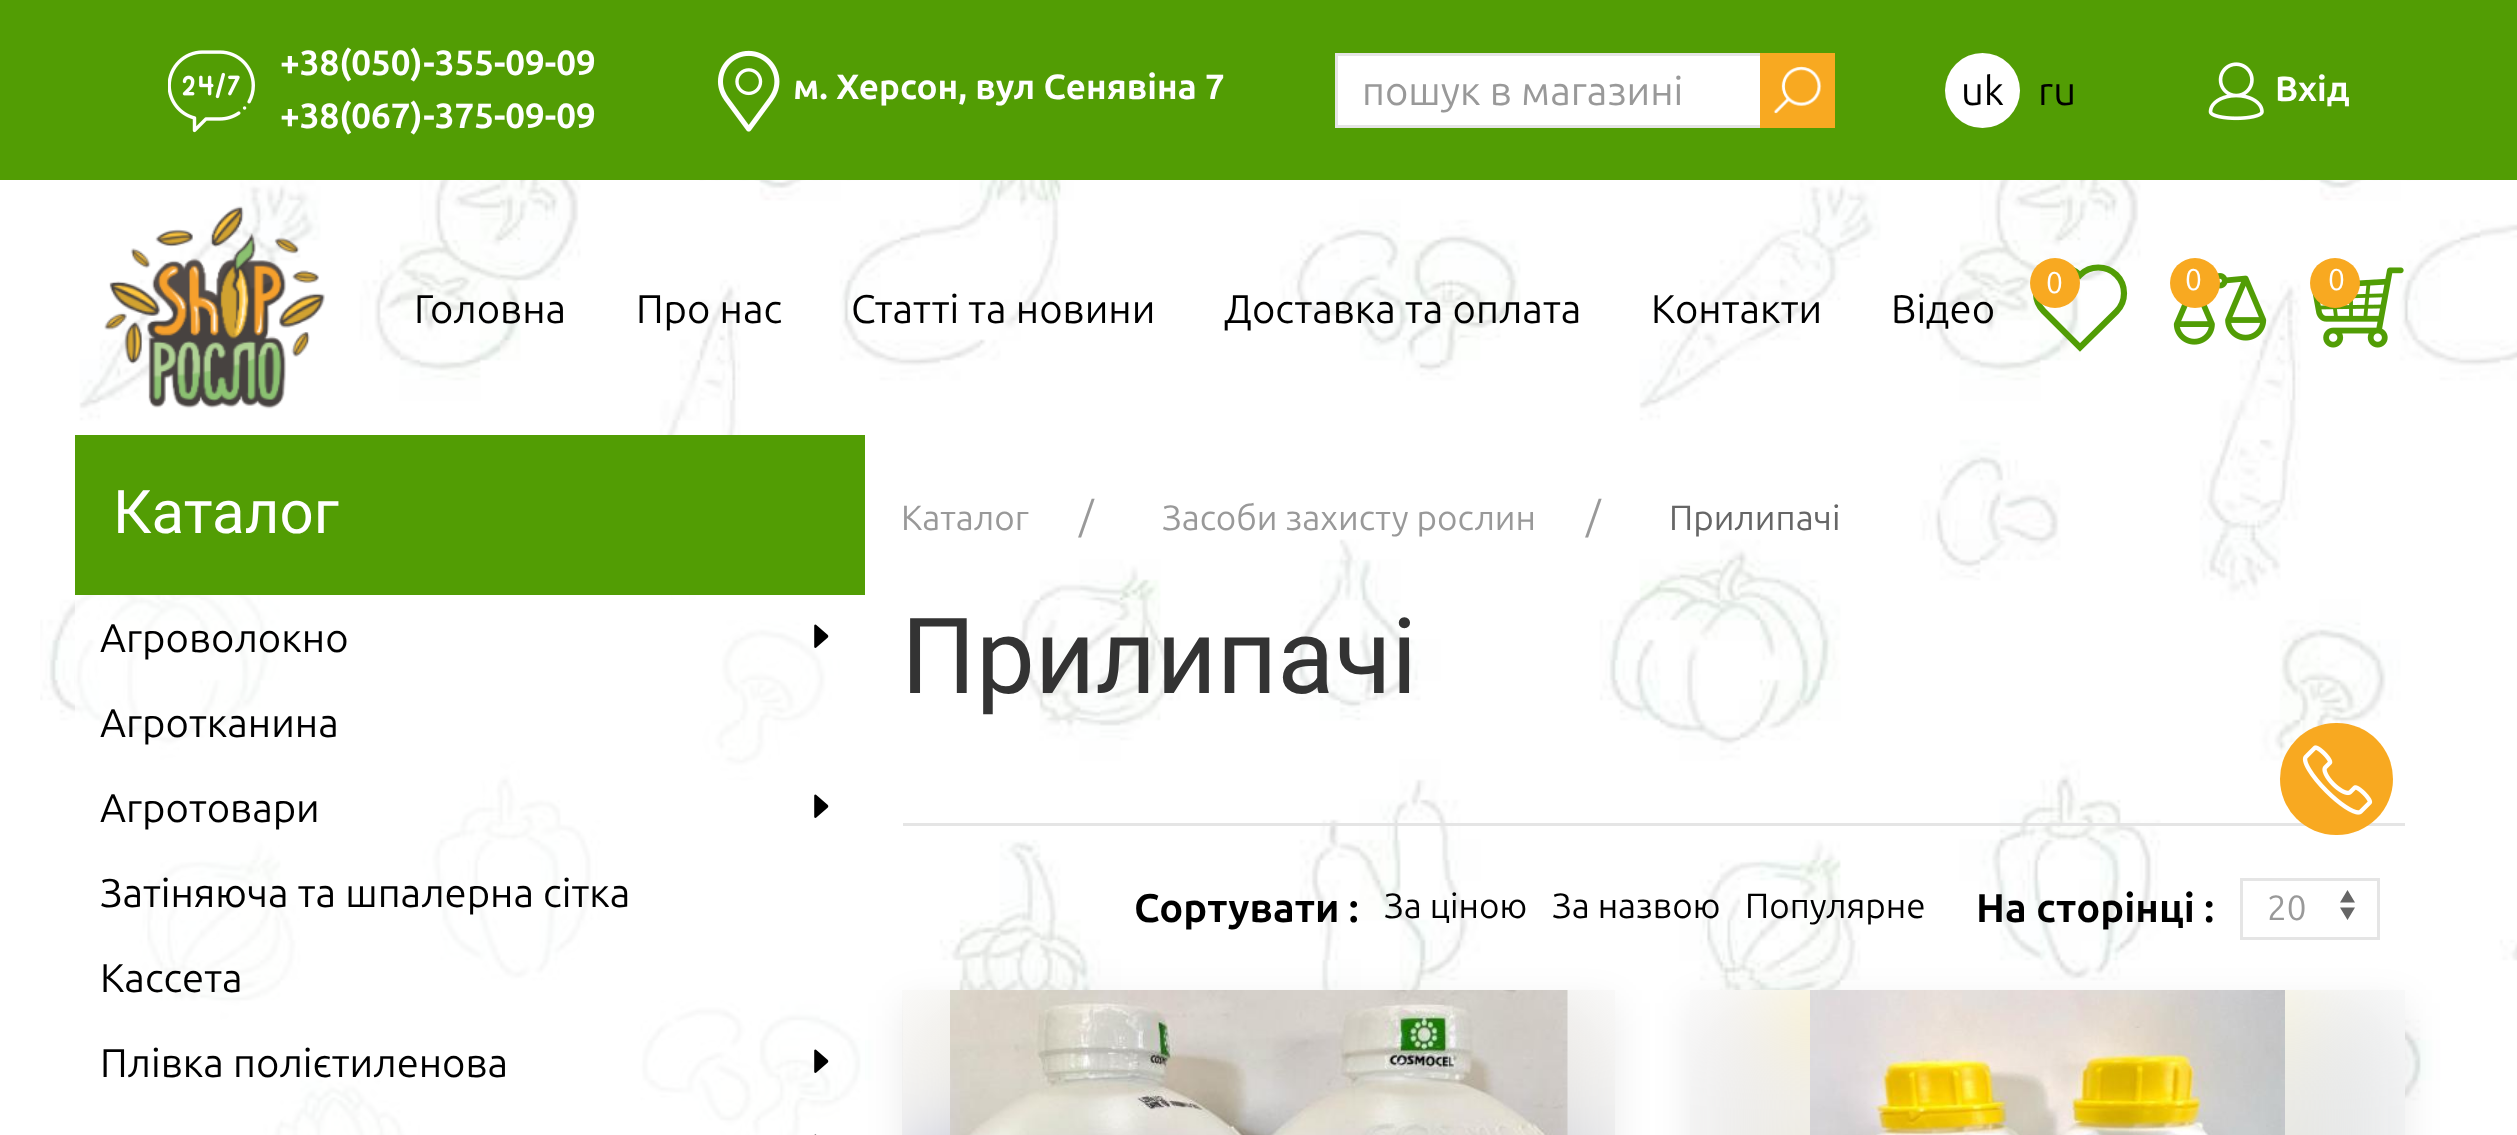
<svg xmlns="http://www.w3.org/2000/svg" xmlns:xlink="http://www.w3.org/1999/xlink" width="2517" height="1135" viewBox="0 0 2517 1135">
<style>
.cls-1{font:bold 35px Ubuntu;fill:#ffffff}
.cls-2{font:40px Ubuntu;fill:#999999}
.cls-3{font:40px Ubuntu;fill:#000000}
.cls-4{font:30px Ubuntu;fill:#ffffff}
.cls-5{font:60px Roboto;fill:#ffffff}
.cls-6{font:35px Ubuntu;fill:#999999}
.cls-7{font:35px Ubuntu;fill:#666666}
.cls-8{font:105px Roboto;fill:#333333}
.cls-9{font:bold 40px Ubuntu;fill:#000000}
.cls-10{font:35px Ubuntu;fill:#000000}
</style>
<rect width="100%" height="100%" fill="#ffffff"/>
<image xlink:href="image0.png" x="40" y="180" width="2477" height="955"/>
<rect fill="#529d04" x="0" y="0" width="2517" height="180"/>
<image xlink:href="image1.png" x="168" y="50" width="87" height="83"/>
<image xlink:href="image2.png" x="717" y="50" width="63" height="82"/>
<rect fill="#ffffff" x="1338" y="56" width="422" height="69"/>
<rect fill="none" stroke="#e5e5e5" stroke-width="3" x="1336.5" y="54.5" width="497" height="72"/>
<rect fill="#f8a921" x="1760" y="53" width="75" height="75"/>
<image xlink:href="image3.png" x="1773" y="66" width="49" height="48"/>
<circle fill="#ffffff" cx="1982.5" cy="90.5" r="37.5"/>
<image xlink:href="image4.png" x="2208" y="62" width="56" height="59"/>
<path fill="none" stroke="#519d05" stroke-width="6.2" d="M2116.5 275C2106.5 265 2090 265 2080 275C2070 265 2053.5 265 2043.5 275C2033.5 285 2033.5 301 2043.5 311L2080 347.5L2116.5 311.5C2126.5 301.5 2126.5 285 2116.5 275Z"/>
<circle fill="#f8a921" cx="2055" cy="283" r="25"/>
<image xlink:href="image5.png" x="2173" y="273" width="94" height="72"/>
<circle fill="#f8a921" cx="2195" cy="283" r="25"/>
<image xlink:href="image6.png" x="2312" y="267" width="92" height="81"/>
<circle fill="#f8a921" cx="2335" cy="283" r="25"/>
<image xlink:href="image7.png" x="104" y="206" width="221" height="203"/>
<rect fill="#ffffff" fill-opacity="0.7" x="75" y="595" width="790" height="540"/>
<rect fill="#529d04" x="75" y="435" width="790" height="160"/>
<image xlink:href="image8.png" x="814" y="624" width="15" height="24"/>
<image xlink:href="image9.png" x="814" y="794" width="15" height="24"/>
<image xlink:href="image10.png" x="814" y="1049" width="15" height="24"/>
<image xlink:href="image11.png" x="814" y="1134" width="3" height="1"/>
<rect fill="#e5e5e5" x="903" y="823" width="1502" height="3"/>
<path fill="#666666" d="M2347.5 890L2340 902.5H2355ZM2347.5 920L2340 907.5H2355Z"/>
<rect fill="none" stroke="#e5e5e5" stroke-width="3" x="2241.5" y="879.5" width="137" height="59"/>
<rect fill="#000000" fill-opacity="0.08" filter="blur(19px)" x="903" y="1003" width="712" height="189"/>
<rect fill="#ffffff" x="903" y="990" width="712" height="145"/>
<image xlink:href="image12.png" x="902" y="990" width="713" height="145"/>
<image xlink:href="image13.png" x="950" y="990" width="618" height="145"/>
<rect fill="#000000" fill-opacity="0.08" filter="blur(19px)" x="1690" y="1003" width="715" height="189"/>
<rect fill="#ffffff" x="1690" y="990" width="715" height="145"/>
<image xlink:href="image14.png" x="1690" y="990" width="715" height="145"/>
<image xlink:href="image15.png" x="1810" y="990" width="475" height="145"/>
<rect fill="#f8a921" x="2280" y="723" width="113" height="112" rx="56"/>
<image xlink:href="image16.png" x="2302" y="745" width="71" height="70"/>
<text class="cls-1"><tspan x="280" y="75">+38(050)-355-09-09</tspan><tspan x="280" y="128">+38(067)-375-09-09</tspan></text>
<text class="cls-1" x="793" y="99">м. Херсон, вул Сенявіна 7</text>
<text class="cls-2" x="1362" y="105">пошук в магазині</text>
<text class="cls-3" x="1961" y="105">uk</text>
<text class="cls-3" x="2038" y="105">ru</text>
<text class="cls-1" x="2275" y="101">Вхід</text>
<text class="cls-4" x="2046" y="293">0</text>
<text class="cls-4" x="2185" y="290">0</text>
<text class="cls-4" x="2328" y="290">0</text>
<text class="cls-3" x="414" y="323">Головна</text>
<text class="cls-3" x="636" y="323">Про нас</text>
<text class="cls-3" x="851" y="323">Статті та новини</text>
<text class="cls-3" x="1224" y="323">Доставка та оплата</text>
<text class="cls-3" x="1651" y="323">Контакти</text>
<text class="cls-3" x="1891" y="323">Відео</text>
<text class="cls-5" x="113" y="533">Каталог</text>
<text class="cls-3" x="100" y="652">Агроволокно</text>
<text class="cls-3" x="100" y="737">Агротканина</text>
<text class="cls-3" x="100" y="822">Агротовари</text>
<text class="cls-3" x="100" y="907">Затіняюча та шпалерна сітка</text>
<text class="cls-3" x="100" y="992">Кассета</text>
<text class="cls-3" x="100" y="1077">Плівка полієтиленова</text>
<text class="cls-6" x="901" y="530">Каталог</text>
<text class="cls-2" x="1079" y="530">/</text>
<text class="cls-6" x="1162" y="530">Засоби захисту рослин</text>
<text class="cls-2" x="1586" y="530">/</text>
<text class="cls-7" x="1669" y="530">Прилипачі</text>
<text class="cls-8" x="901" y="693">Прилипачі</text>
<text class="cls-9" x="1134" y="922">Сортувати :</text>
<text class="cls-10" x="1384" y="918">За ціною</text>
<text class="cls-10" x="1552" y="918">За назвою</text>
<text class="cls-10" x="1745" y="918">Популярне</text>
<text class="cls-9" x="1976" y="922">На сторінці :</text>
<text class="cls-6" x="2267" y="920">20</text>
</svg>
